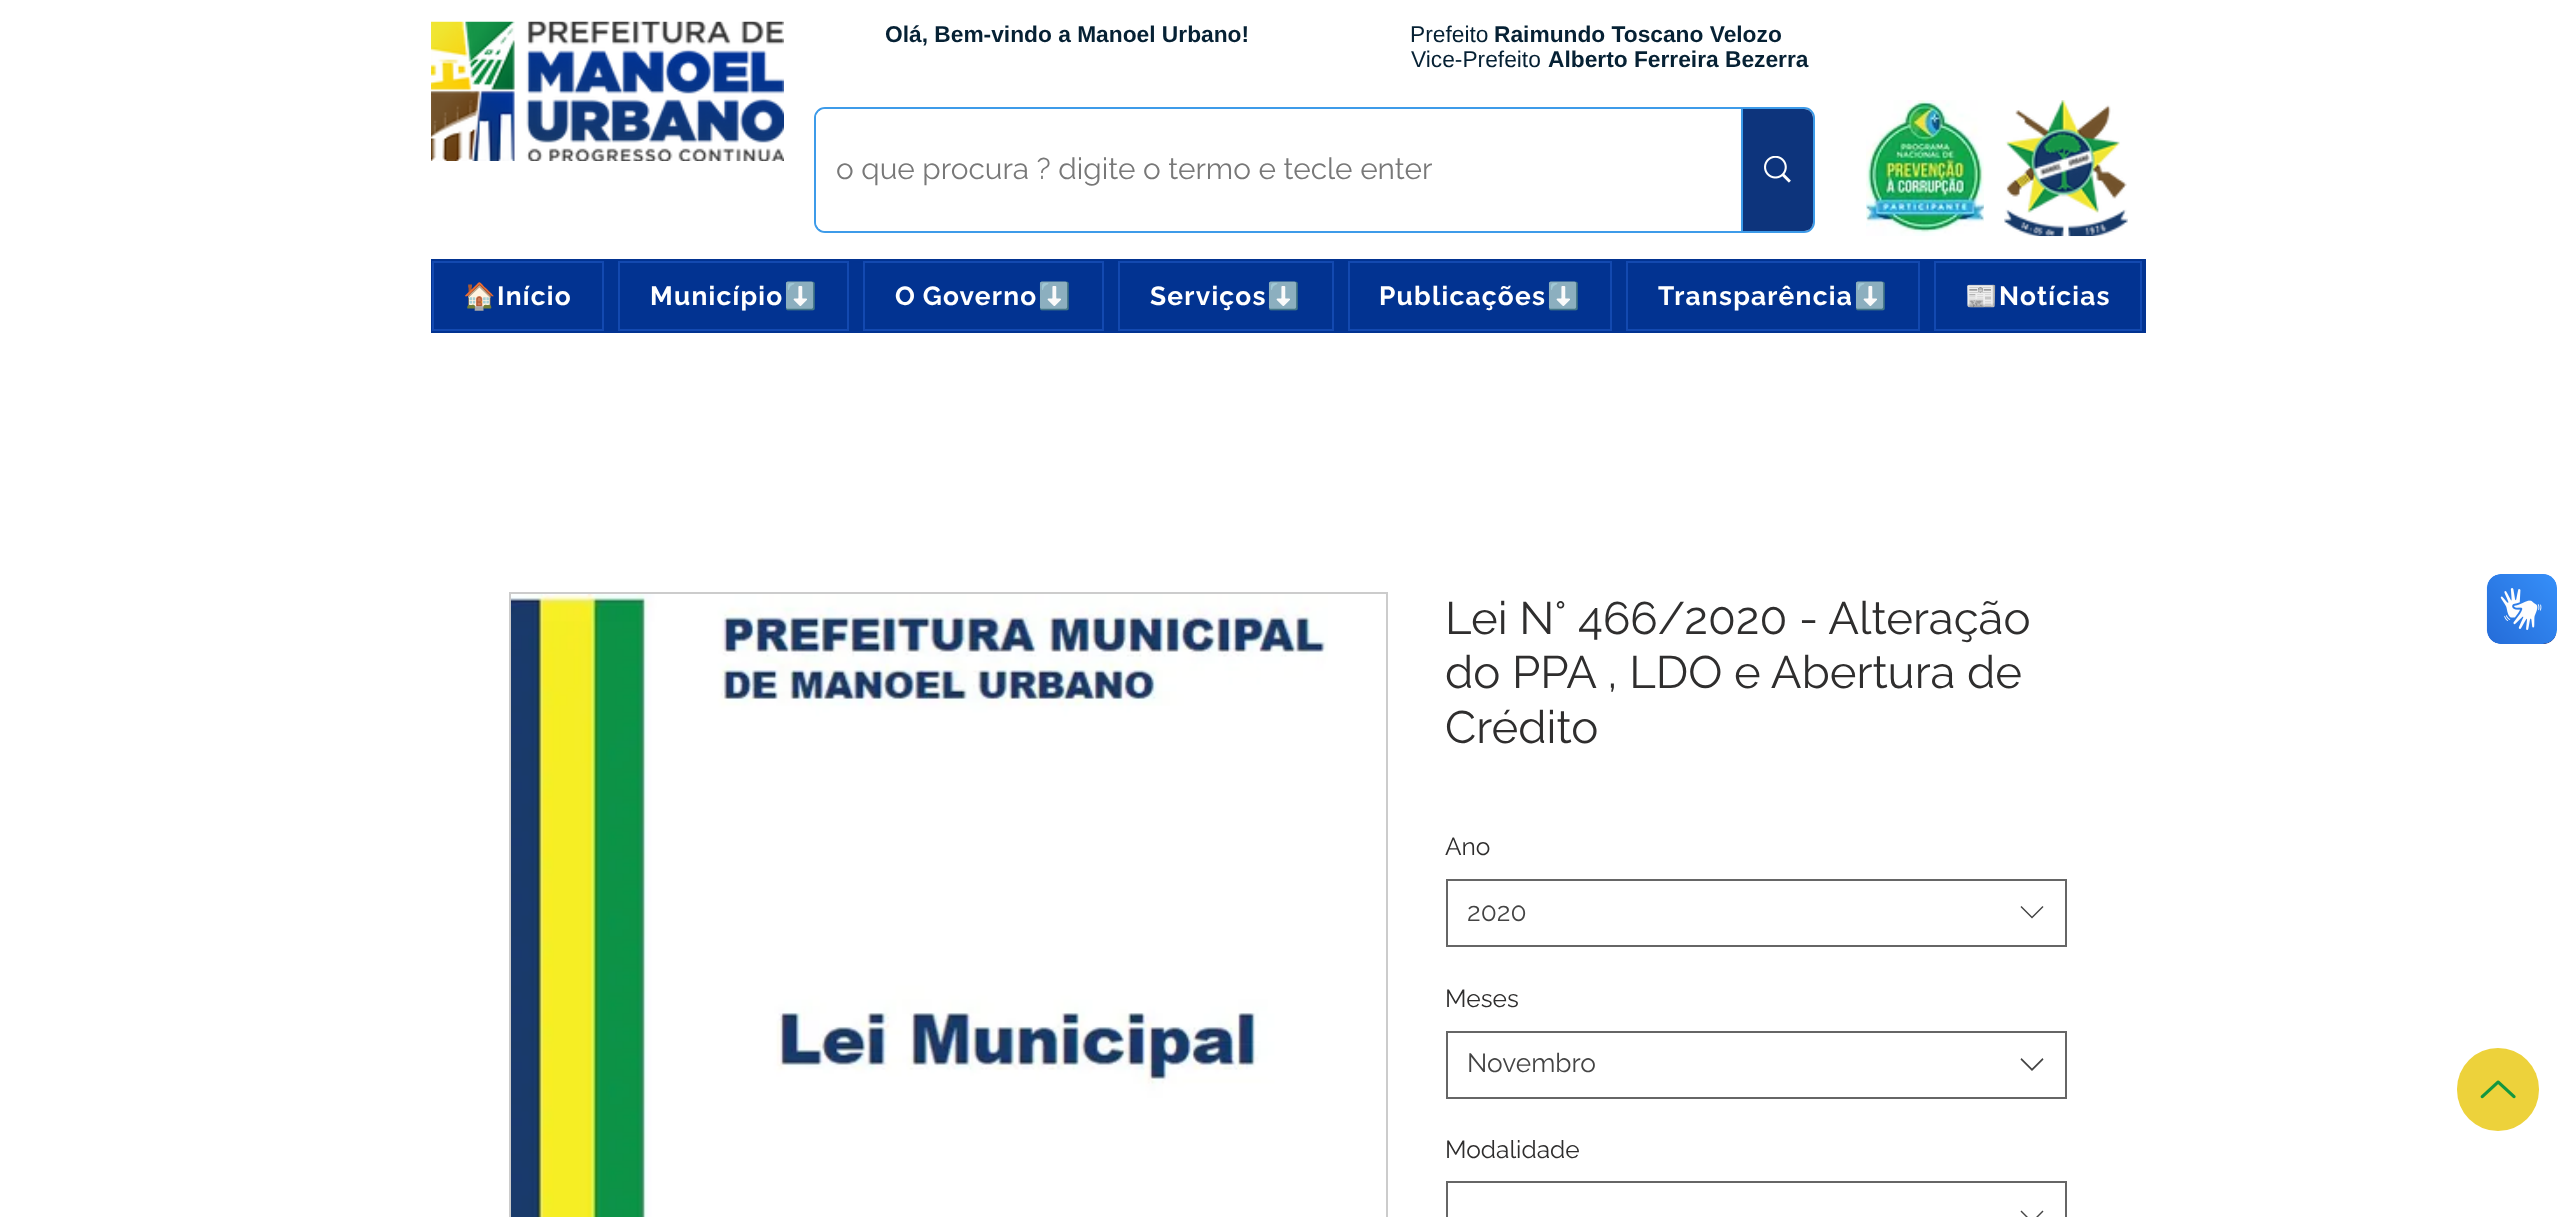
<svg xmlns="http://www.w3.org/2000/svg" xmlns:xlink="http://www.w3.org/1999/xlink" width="2573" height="1217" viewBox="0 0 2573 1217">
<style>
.cls-1{font:bold 22.75px Liberation Sans;fill:#062134}
.cls-2{font:22.75px Liberation Sans;fill:#062134}
.cls-3{font:29.75px Raleway;fill:#787878}
.cls-4{font:bold 26.25px Noto Color Emoji;letter-spacing:1.25px;fill:#ffffff}
.cls-5{font:bold 26.25px Raleway;letter-spacing:1.25px;fill:#ffffff}
.cls-6{font:45.5px Raleway;fill:#2f2e2e}
.cls-7{font:24.5px Raleway;fill:#2f2e2e}
.cls-8{font:26.25px Raleway;fill:#444444}
</style>
<defs>
<clipPath id="clip1"><rect x="837" y="151" width="831" height="35"/></clipPath>
</defs>
<rect width="100%" height="100%" fill="#ffffff"/>
<image xlink:href="image0.png" x="431" y="21" width="353" height="140"/>
<rect fill="none" stroke="#3d9be9" stroke-width="2" x="815" y="108" width="999" height="124" rx="10"/>
<rect fill="#ffffff" x="816" y="109" width="997" height="122" rx="9"/>
<path fill="#0d347c" d="M1741 109H1804C1809 109 1813 113 1813 118V222C1813 227 1809 231 1804 231H1741Z"/>
<rect fill="#3d9be9" x="1741" y="109" width="2" height="122"/>
<image xlink:href="image1.png" x="1764" y="156" width="27" height="27"/>
<image xlink:href="image2.png" x="1866" y="100" width="118" height="136"/>
<image xlink:href="image3.png" x="2004" y="100" width="124" height="137"/>
<rect fill="#023391" x="431" y="259" width="1715" height="74"/>
<rect fill="none" stroke="#1349b0" stroke-width="2" x="433" y="262" width="170" height="68"/>
<rect fill="none" stroke="#1349b0" stroke-width="2" x="619" y="262" width="229" height="68"/>
<rect fill="none" stroke="#1349b0" stroke-width="2" x="864" y="262" width="239" height="68"/>
<rect fill="none" stroke="#1349b0" stroke-width="2" x="1119" y="262" width="214" height="68"/>
<rect fill="none" stroke="#1349b0" stroke-width="2" x="1349" y="262" width="262" height="68"/>
<rect fill="none" stroke="#1349b0" stroke-width="2" x="1627" y="262" width="292" height="68"/>
<rect fill="none" stroke="#1349b0" stroke-width="2" x="1935" y="262" width="206" height="68"/>
<rect fill="none" stroke="#cccccc" stroke-width="2" x="510" y="593" width="877" height="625"/>
<image xlink:href="image4.png" x="511" y="594" width="817" height="623"/>
<rect fill="none" stroke="#666666" stroke-width="2" x="1447" y="880" width="619" height="66"/>
<path fill="#444444" fill-rule="evenodd" d="M2042.5 906L2043.5 907L2032 918.5L2020.5 907L2021.5 906L2032 916.5Z"/>
<rect fill="none" stroke="#666666" stroke-width="2" x="1447" y="1032" width="619" height="66"/>
<path fill="#444444" fill-rule="evenodd" d="M2042.5 1058L2043.5 1059.5L2032 1071L2020.5 1059.5L2021.5 1058L2032 1068.5Z"/>
<rect fill="none" stroke="#666666" stroke-width="2" x="1447" y="1182" width="619" height="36"/>
<path fill="#444444" fill-rule="evenodd" d="M2042.5 1210.5L2043.5 1211.5L2032 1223L2020.5 1211.5L2021.5 1210.5L2032 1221Z"/>
<rect fill="#edd23b" x="2457" y="1048" width="82" height="83" rx="41"/>
<image xlink:href="image5.png" x="2480" y="1080" width="36" height="19"/>
<image xlink:href="image6.png" x="2486" y="574" width="71" height="70"/>
<image xlink:href="image7.png" x="2487" y="574" width="70" height="70"/>
<text class="cls-1" x="885" y="42">Olá, Bem-vindo a Manoel Urbano!</text>
<text class="cls-2" x="1410" y="42">Prefeito</text>
<text class="cls-1" x="1494" y="42">Raimundo Toscano Velozo</text>
<text class="cls-2" x="1411" y="67">Vice-Prefeito</text>
<text class="cls-1" x="1548" y="67">Alberto Ferreira Bezerra</text>
<g clip-path="url(#clip1)">
<text class="cls-3" x="836" y="179">o que procura ? digite o termo e tecle enter</text>
</g>
<text class="cls-4" x="463" y="305">🏠</text>
<text class="cls-5" x="497" y="305">Início</text>
<text class="cls-5" x="650" y="305">Município</text>
<text class="cls-4" x="784" y="305">⬇️</text>
<text class="cls-5" x="895" y="305" word-spacing="-1">O Governo</text>
<text class="cls-4" x="1038" y="305">⬇️</text>
<text class="cls-5" x="1150" y="305">Serviços</text>
<text class="cls-4" x="1267" y="305">⬇️</text>
<text class="cls-5" x="1379" y="305">Publicações</text>
<text class="cls-4" x="1547" y="305">⬇️</text>
<text class="cls-5" x="1658" y="305">Transparência</text>
<text class="cls-4" x="1854" y="305">⬇️</text>
<text class="cls-4" x="1965" y="305">📰</text>
<text class="cls-5" x="1999" y="305">Notícias</text>
<text class="cls-6"><tspan x="1445" y="634">Lei N° 466/2020 - Alteração</tspan><tspan x="1445" y="688">do PPA , LDO e Abertura de</tspan><tspan x="1445" y="743">Crédito</tspan></text>
<text class="cls-7" x="1445" y="855">Ano</text>
<text class="cls-8" x="1467" y="921">2020</text>
<text class="cls-7" x="1445" y="1007">Meses</text>
<text class="cls-8" x="1467" y="1072">Novembro</text>
<text class="cls-7" x="1445" y="1158">Modalidade</text>
</svg>
